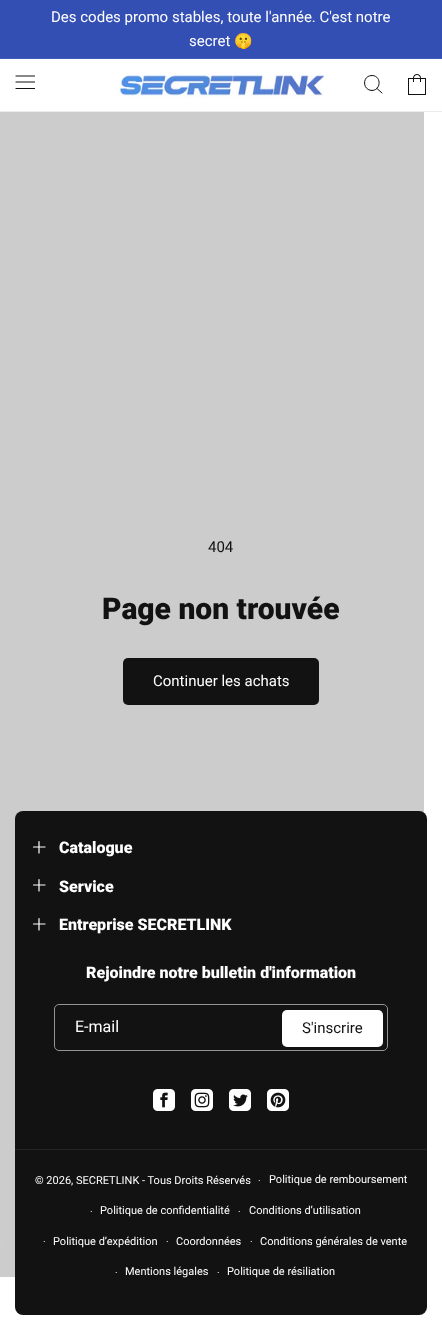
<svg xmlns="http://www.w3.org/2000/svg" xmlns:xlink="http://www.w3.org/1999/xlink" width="442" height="1330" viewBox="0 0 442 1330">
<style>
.cls-1{font:15px Roboto;fill:#ffffff}
.cls-2{font:15px Noto Color Emoji;fill:#ffffff}
.cls-3{font:15px Roboto;fill:#121212}
.cls-4{font:900 30px Roboto;fill:#121212}
.cls-5{font:900 16px Roboto;fill:#ffffff}
.cls-6{font:16px Roboto;fill:#ffffff}
.cls-7{font:10px Roboto;fill:#ffffff}
.cls-8{font:11px Roboto;fill:#ffffff}
</style>
<defs>
<clipPath id="clip1"><rect x="15" y="71" width="20" height="21"/></clipPath>
</defs>
<rect width="100%" height="100%" fill="#ffffff"/>
<rect fill="#334fb4" x="0" y="0" width="442" height="58"/>
<rect fill="#435dba" x="0" y="58" width="442" height="1"/>
<rect fill="#ececec" x="0" y="111" width="442" height="1"/>
<g clip-path="url(#clip1)">
<path fill="none" stroke="#121212" stroke-width="1.2" stroke-linecap="round" stroke-linejoin="round" d="M16 76H35.5M16 82H35.5M16 88.5H35.5"/>
</g>
<image xlink:href="image0.png" x="118" y="72" width="206" height="27"/>
<path fill="none" stroke="#121212" stroke-linecap="round" stroke-linejoin="round" d="M372 90.5C381.5 90.5 381.5 75.5 372 75.5C362 75.5 362 90.5 372 90.5ZM382 93L377 88.5"/>
<image xlink:href="image1.png" x="408" y="74" width="18" height="21"/>
<image xlink:href="image2.png" x="0" y="112" width="424" height="1165"/>
<rect fill="#121212" x="123" y="658" width="196" height="47" rx="5"/>
<rect fill="#121212" x="15" y="811" width="412" height="504" rx="8"/>
<path fill="none" stroke="#ffffff" stroke-width="1.2" stroke-linecap="round" stroke-linejoin="round" d="M39 841.5V853M45 847H33.5M39 879.5V891M45 885H33.5"/>
<path fill="none" stroke="#ffffff" stroke-width="1.2" stroke-linecap="round" stroke-linejoin="round" d="M39 918.5V930M45 924H33.5"/>
<rect fill="none" stroke="#949494" x="54.5" y="1004.5" width="333" height="46" rx="4.5"/>
<rect fill="#ffffff" x="282" y="1010" width="101" height="37" rx="5"/>
<image xlink:href="image3.png" x="153" y="1089" width="22" height="22"/>
<image xlink:href="image4.png" x="191" y="1089" width="22" height="22"/>
<image xlink:href="image5.png" x="229" y="1089" width="22" height="22"/>
<image xlink:href="image6.png" x="267" y="1089" width="22" height="22"/>
<rect fill="#252525" x="15" y="1149" width="412" height="1"/>
<text class="cls-1" x="51" y="22">Des codes promo stables, toute l'année. C'est notre</text>
<text class="cls-1" x="189" y="46">secret</text>
<text class="cls-2" x="234" y="46">🤫</text>
<text class="cls-3" x="208" y="552">404</text>
<text class="cls-4" x="102" y="619">Page non trouvée</text>
<text class="cls-1" x="153" y="686">Continuer les achats</text>
<text class="cls-5" x="59" y="853">Catalogue</text>
<text class="cls-5" x="59" y="892">Service</text>
<text class="cls-5" x="59" y="930">Entreprise SECRETLINK</text>
<text class="cls-5" x="86" y="978">Rejoindre notre bulletin d'information</text>
<text class="cls-6" x="75" y="1032">E-mail</text>
<text class="cls-3" x="302" y="1033">S'inscrire</text>
<text class="cls-7" x="258" y="1184">·</text>
<text class="cls-8" x="269" y="1183">Politique de remboursement</text>
<text class="cls-7" x="90" y="1215">·</text>
<text class="cls-8" x="100" y="1214">Politique de confidentialité</text>
<text class="cls-7" x="238" y="1215">·</text>
<text class="cls-8" x="249" y="1214">Conditions d’utilisation</text>
<text class="cls-7" x="43" y="1245">·</text>
<text class="cls-8" x="53" y="1245">Politique d’expédition</text>
<text class="cls-7" x="166" y="1245">·</text>
<text class="cls-8" x="176" y="1245">Coordonnées</text>
<text class="cls-7" x="250" y="1245">·</text>
<text class="cls-8" x="260" y="1245">Conditions générales de vente</text>
<text class="cls-7" x="115" y="1276">·</text>
<text class="cls-8" x="125" y="1275">Mentions légales</text>
<text class="cls-7" x="217" y="1276">·</text>
<text class="cls-8" x="227" y="1275">Politique de résiliation</text>
<text class="cls-8" x="35" y="1184">© 2026, SECRETLINK - Tous Droits Réservés</text>
</svg>
